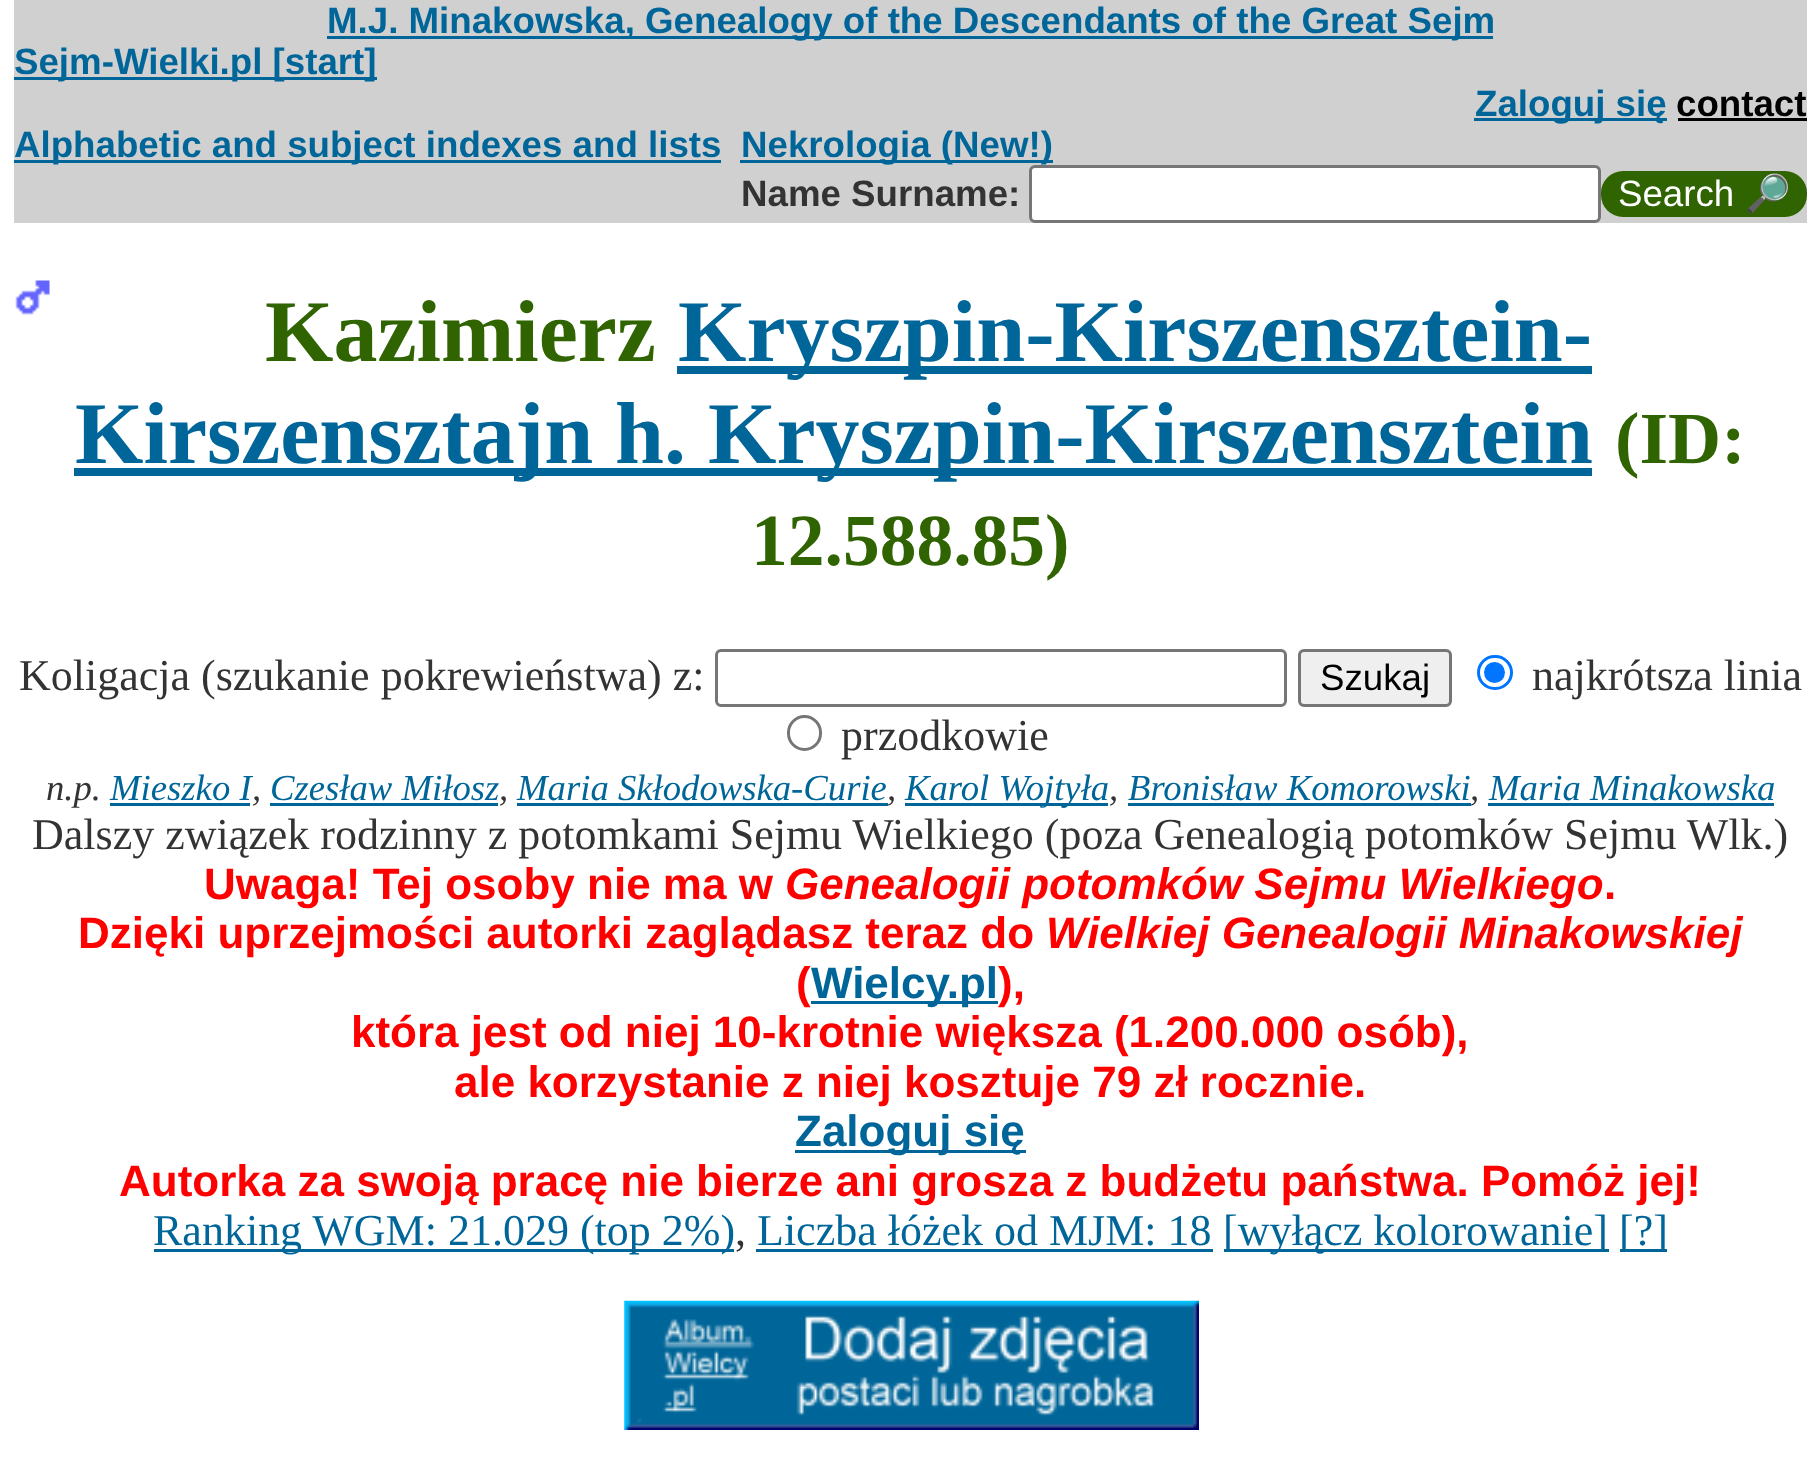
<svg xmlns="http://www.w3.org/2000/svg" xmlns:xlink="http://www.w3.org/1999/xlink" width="1818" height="1465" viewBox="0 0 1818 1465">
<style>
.cls-1{font:bold 36.7px Liberation Sans;fill:#006699}
.cls-2{font:bold 36.7px Liberation Sans;fill:#000000}
.cls-3{font:bold 36.7px Liberation Sans;fill:#333333}
.cls-4{font:36.7px Liberation Sans;fill:#ffffff}
.cls-5{font:36.7px Noto Color Emoji;fill:#ffffff}
.cls-6{font:bold 88px Liberation Serif;fill:#2f6400}
.cls-7{font:bold 88px Liberation Serif;fill:#006699}
.cls-8{font:bold 73.5px Liberation Serif;fill:#2f6400}
.cls-9{font:44px Liberation Serif;fill:#333333}
.cls-10{font:36.7px Liberation Sans;fill:#000000}
.cls-11{font:italic 36.7px Liberation Serif;fill:#333333}
.cls-12{font:italic 36.7px Liberation Serif;fill:#006699}
.cls-13{font:bold 44px Liberation Sans;fill:#ff0000}
.cls-14{font:italic bold 44px Liberation Sans;fill:#ff0000}
.cls-15{font:bold 44px Liberation Sans;fill:#006699}
.cls-16{font:44px Liberation Serif;fill:#006699}
</style>
<rect width="100%" height="100%" fill="#ffffff"/>
<rect fill="#d0d0d0" x="14" y="0" width="1793" height="223"/>
<rect fill="#006699" x="327" y="36" width="1166" height="3"/>
<rect fill="#006699" x="14" y="77" width="363" height="3"/>
<rect fill="#006699" x="1474" y="118" width="193" height="3"/>
<rect fill="#000000" x="1678" y="118" width="129" height="3"/>
<rect fill="#006699" x="14" y="160" width="707" height="3"/>
<rect fill="#006699" x="740" y="160" width="313" height="3"/>
<rect fill="#ffffff" stroke="#767676" stroke-width="3" x="1030.5" y="166.5" width="569" height="55" rx="4.5"/>
<rect fill="#2f6400" x="1601" y="171" width="206" height="46" rx="22"/>
<image xlink:href="image0.png" x="15" y="280" width="35" height="35"/>
<rect fill="#006699" x="677" y="366" width="915" height="8"/>
<rect fill="#006699" x="74" y="468" width="1518" height="8"/>
<rect fill="none" stroke="#767676" stroke-width="3" x="716.5" y="650.5" width="569" height="55" rx="4.5"/>
<rect fill="#efefef" stroke="#767676" stroke-width="3" x="1299.5" y="650.5" width="151" height="55" rx="4.5"/>
<rect fill="none" stroke="#0075ff" stroke-width="3" x="1478.5" y="656.5" width="33" height="32" rx="16"/>
<circle fill="#0075ff" cx="1494.5" cy="672.5" r="10.5"/>
<rect fill="none" stroke="#767676" stroke-width="3" x="788.5" y="716.5" width="32" height="33" rx="16"/>
<rect fill="#006699" x="110" y="803" width="140" height="3"/>
<rect fill="#006699" x="270" y="803" width="228" height="3"/>
<rect fill="#006699" x="517" y="803" width="371" height="3"/>
<rect fill="#006699" x="905" y="803" width="203" height="3"/>
<rect fill="#006699" x="1128" y="803" width="343" height="3"/>
<rect fill="#006699" x="1488" y="803" width="286" height="3"/>
<rect fill="#006699" x="811" y="1001" width="187" height="3"/>
<rect fill="#006699" x="795" y="1150" width="231" height="3"/>
<rect fill="#006699" x="154" y="1249" width="580" height="3"/>
<rect fill="#006699" x="756" y="1249" width="457" height="3"/>
<rect fill="#006699" x="1224" y="1249" width="385" height="3"/>
<rect fill="#006699" x="1620" y="1249" width="47" height="3"/>
<image xlink:href="image1.png" x="624" y="1300" width="575" height="130"/>
<text class="cls-1" x="327" y="33">M.J. Minakowska, Genealogy of the Descendants of the Great Sejm</text>
<text class="cls-1" x="14" y="74">Sejm-Wielki.pl [start]</text>
<text class="cls-1" x="1475" y="116">Zaloguj się</text>
<text class="cls-2" x="1676" y="116">contact</text>
<text class="cls-1" x="14" y="157">Alphabetic and subject indexes and lists</text>
<text class="cls-1" x="741" y="157">Nekrologia (New!)</text>
<text class="cls-3" x="741" y="206">Name Surname:</text>
<text class="cls-4" x="1618" y="206">Search</text>
<text class="cls-5" x="1745" y="206">🔎</text>
<text class="cls-6" x="265" y="361">Kazimierz</text>
<text class="cls-7" x="678" y="361">Kryszpin-Kirszensztein-</text>
<text class="cls-7" x="75" y="463">Kirszensztajn h. Kryszpin-Kirszensztein</text>
<text class="cls-8" x="1615" y="463">(ID:</text>
<text class="cls-8" x="751" y="565">12.588.85)</text>
<text class="cls-9" x="19" y="690">Koligacja (szukanie pokrewieństwa) z:</text>
<text class="cls-10" x="1320" y="690">Szukaj</text>
<text class="cls-9" x="1532" y="690">najkrótsza linia</text>
<text class="cls-9" x="841" y="750">przodkowie</text>
<text class="cls-11" x="46" y="800">n.p.</text>
<text class="cls-12" x="110" y="800">Mieszko I</text>
<text class="cls-11" x="252" y="800">,</text>
<text class="cls-12" x="270" y="800">Czesław Miłosz</text>
<text class="cls-11" x="499" y="800">,</text>
<text class="cls-12" x="517" y="800">Maria Skłodowska-Curie</text>
<text class="cls-11" x="887" y="800">,</text>
<text class="cls-12" x="905" y="800">Karol Wojtyła</text>
<text class="cls-11" x="1109" y="800">,</text>
<text class="cls-12" x="1128" y="800">Bronisław Komorowski</text>
<text class="cls-11" x="1470" y="800">,</text>
<text class="cls-12" x="1489" y="800">Maria Minakowska</text>
<text class="cls-9" x="32" y="849">Dalszy związek rodzinny z potomkami Sejmu Wielkiego (poza Genealogią potomków Sejmu Wlk.)</text>
<text class="cls-13" x="204" y="899">Uwaga! Tej osoby nie ma w</text>
<text class="cls-14" x="785" y="899">Genealogii potomków Sejmu Wielkiego</text>
<text class="cls-13" x="1604" y="899">.</text>
<text class="cls-13" x="78" y="948">Dzięki uprzejmości autorki zaglądasz teraz do</text>
<text class="cls-14" x="1046" y="948">Wielkiej Genealogii Minakowskiej</text>
<text class="cls-13" x="796" y="998">(</text>
<text class="cls-15" x="811" y="998">Wielcy.pl</text>
<text class="cls-13" x="998" y="998">),</text>
<text class="cls-13" x="351" y="1047">która jest od niej 10-krotnie większa (1.200.000 osób),</text>
<text class="cls-13" x="454" y="1097">ale korzystanie z niej kosztuje 79 zł rocznie.</text>
<text class="cls-15" x="795" y="1146">Zaloguj się</text>
<text class="cls-13" x="119" y="1196">Autorka za swoją pracę nie bierze ani grosza z budżetu państwa. Pomóż jej!</text>
<text class="cls-16" x="153" y="1245">Ranking WGM: 21.029 (top 2%)</text>
<text class="cls-9" x="735" y="1245">,</text>
<text class="cls-16" x="757" y="1245">Liczba łóżek od MJM: 18</text>
<text class="cls-16" x="1223" y="1245">[wyłącz kolorowanie]</text>
<text class="cls-16" x="1619" y="1245">[?]</text>
</svg>
